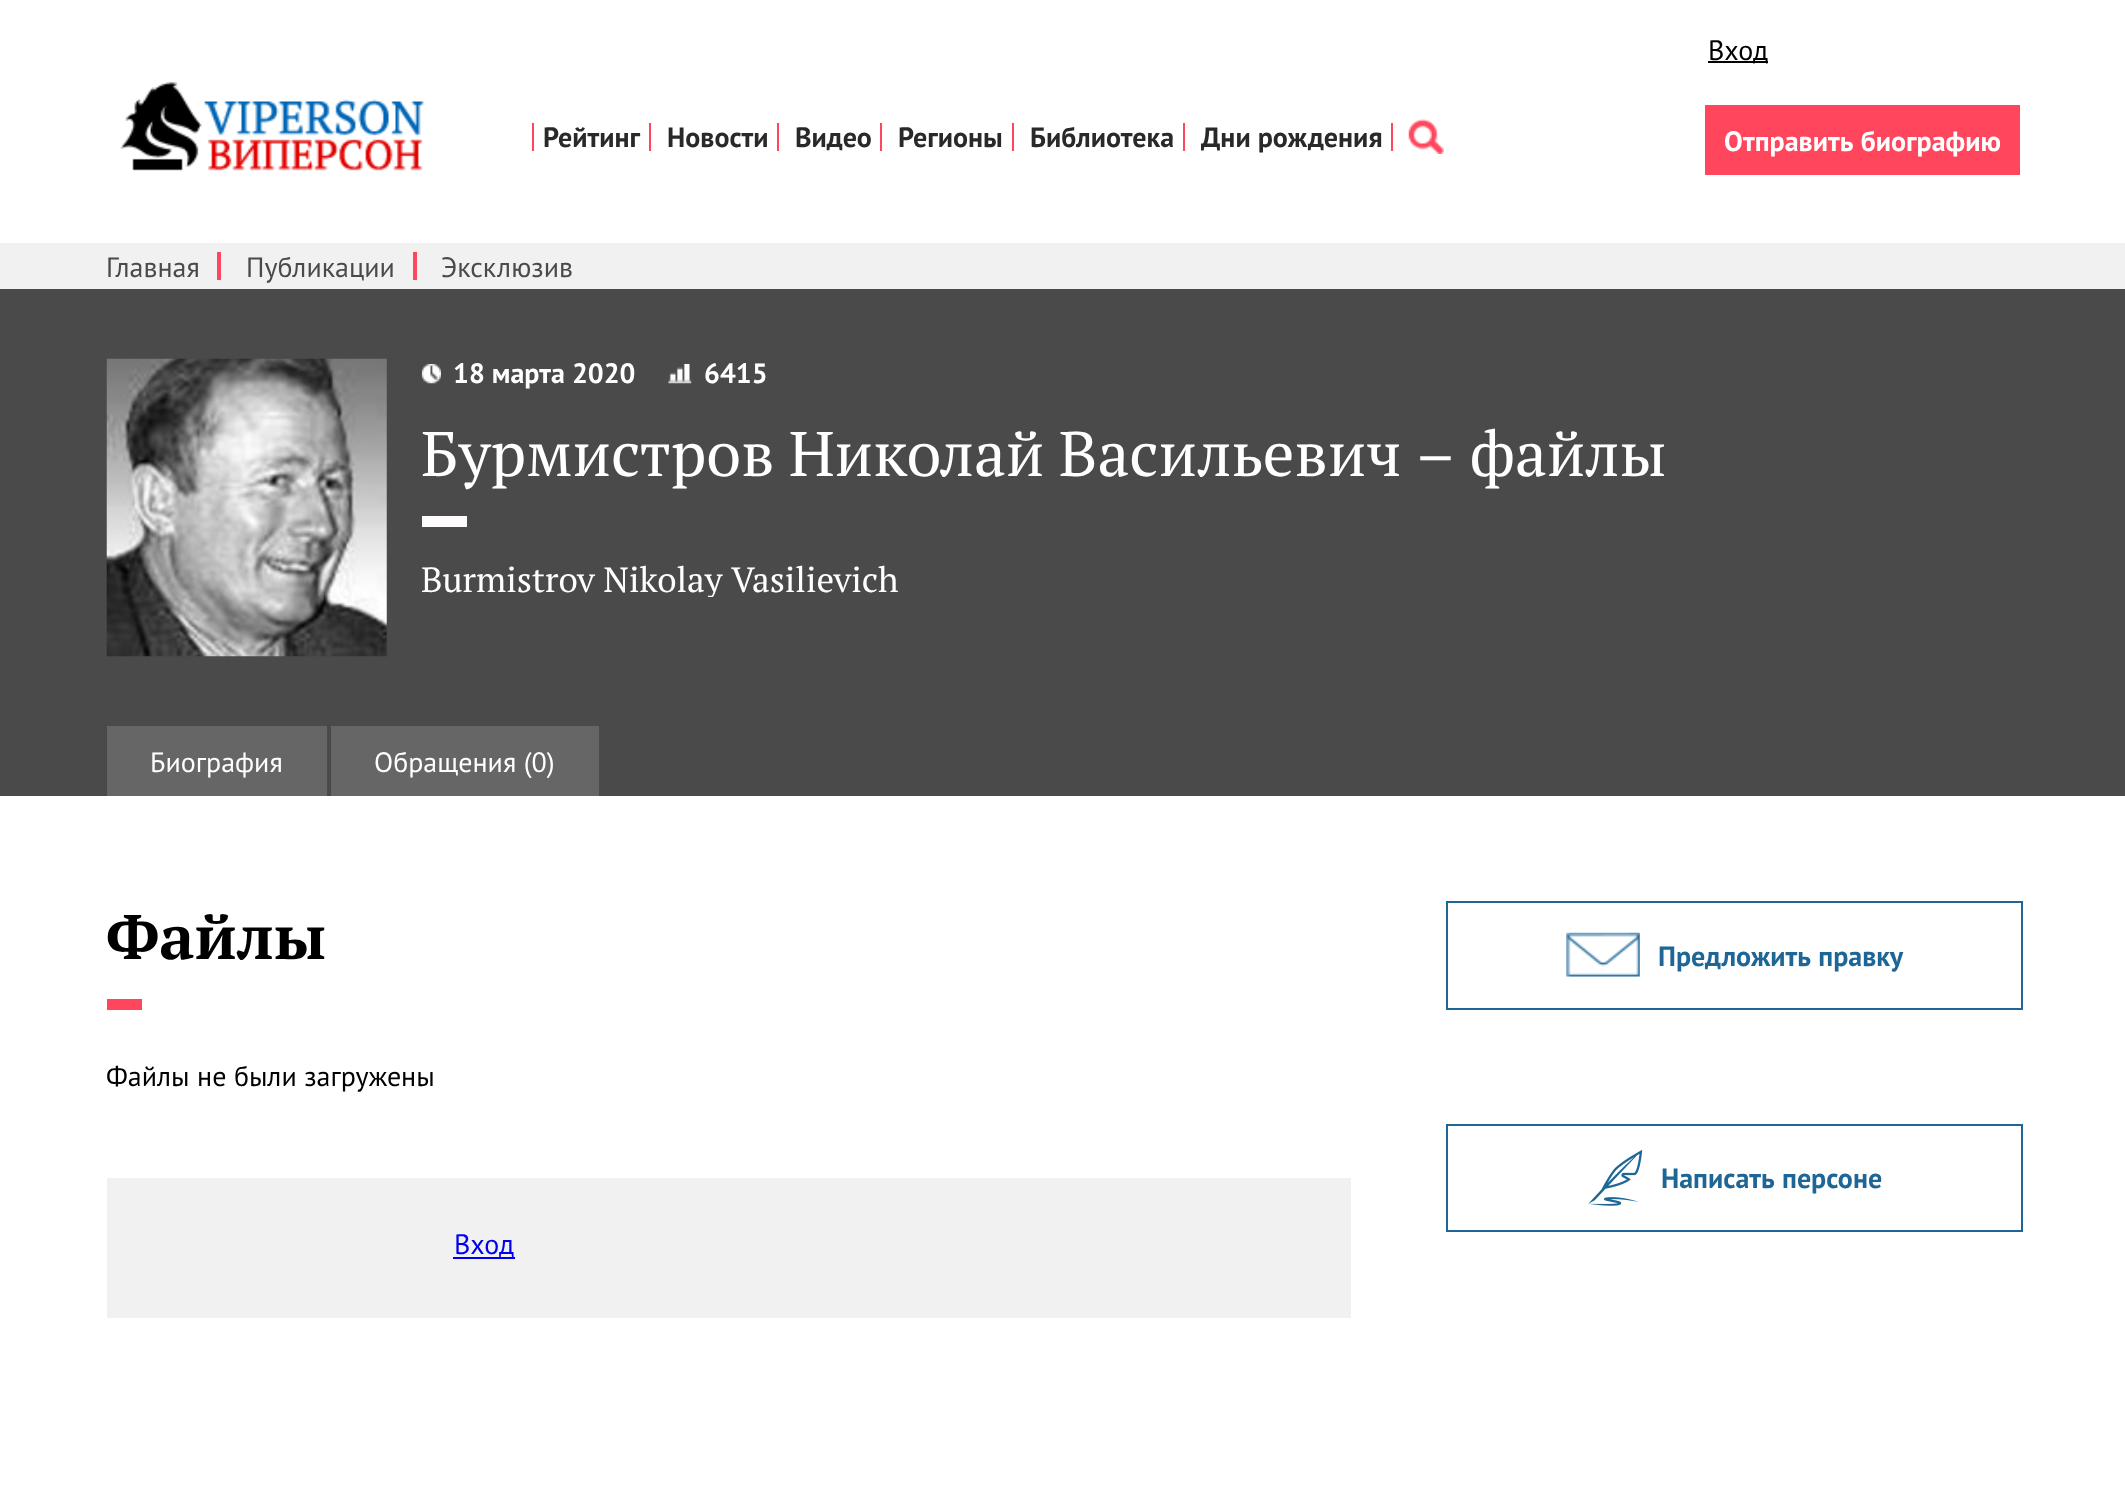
<svg xmlns="http://www.w3.org/2000/svg" xmlns:xlink="http://www.w3.org/1999/xlink" width="2125" height="1496" viewBox="0 0 2125 1496">
<style>
.cls-1{font:28px PT Sans;fill:#000000}
.cls-2{font:bold 28px PT Sans;fill:#292929}
.cls-3{font:bold 28px PT Sans;fill:#ffffff}
.cls-4{font:28px PT Sans;fill:#4a4a4a}
.cls-5{font:63px PT Serif;fill:#ffffff}
.cls-6{font:35px PT Serif;fill:#ffffff}
.cls-7{font:28px PT Sans;fill:#ffffff}
.cls-8{font:bold 63px PT Serif;fill:#000000}
.cls-9{font:28px PT Sans;fill:#0000ee}
.cls-10{font:bold 28px PT Sans;fill:#1e6696}
</style>
<defs>
<clipPath id="clip1"><rect x="422" y="359" width="1598" height="238"/></clipPath>
</defs>
<rect width="100%" height="100%" fill="#ffffff"/>
<image xlink:href="image0.png" x="120" y="81" width="304" height="90"/>
<rect fill="#000000" x="1708" y="61" width="60" height="2"/>
<rect fill="#ff465d" x="649" y="123" width="2" height="28"/>
<rect fill="#ff465d" x="532" y="123" width="2" height="28"/>
<rect fill="#ff465d" x="777" y="123" width="2" height="28"/>
<rect fill="#ff465d" x="880" y="123" width="2" height="28"/>
<rect fill="#ff465d" x="1012" y="123" width="2" height="28"/>
<rect fill="#ff465d" x="1183" y="123" width="2" height="28"/>
<rect fill="#ff465d" x="1391" y="123" width="2" height="28"/>
<image xlink:href="image1.png" x="1408" y="119" width="36" height="35"/>
<rect fill="#ff465d" x="1705" y="105" width="315" height="70"/>
<rect fill="#f1f1f1" x="0" y="243" width="2125" height="46"/>
<rect fill="#ff465d" x="217" y="252" width="4" height="28"/>
<rect fill="#ff465d" x="413" y="252" width="4" height="28"/>
<rect fill="#4a4a4a" x="0" y="289" width="2125" height="507"/>
<image xlink:href="image2.png" x="106" y="358" width="281" height="299"/>
<image xlink:href="image3.png" x="421" y="364" width="20" height="20"/>
<image xlink:href="image4.png" x="668" y="364" width="24" height="20"/>
<rect fill="#fdfbfb" x="422" y="516" width="45" height="11"/>
<rect fill="#666666" x="107" y="726" width="220" height="70"/>
<rect fill="#666666" x="331" y="726" width="268" height="70"/>
<rect fill="#ff465d" x="107" y="999" width="35" height="11"/>
<rect fill="#f1f1f1" x="107" y="1178" width="1244" height="140"/>
<rect fill="#0000ee" x="453" y="1257" width="62" height="2"/>
<rect fill="none" stroke="#1e6696" stroke-width="2" x="1447" y="902" width="575" height="107"/>
<image xlink:href="image5.png" x="1566" y="932" width="74" height="45"/>
<rect fill="none" stroke="#1e6696" stroke-width="2" x="1447" y="1125" width="575" height="106"/>
<image xlink:href="image6.png" x="1588" y="1150" width="55" height="56"/>
<text class="cls-1" x="1708" y="60">Вход</text>
<text class="cls-2" x="543" y="147">Рейтинг</text>
<text class="cls-2" x="667" y="147">Новости</text>
<text class="cls-2" x="795" y="147">Видео</text>
<text class="cls-2" x="898" y="147">Регионы</text>
<text class="cls-2" x="1030" y="147">Библиотека</text>
<text class="cls-2" x="1201" y="147">Дни рождения</text>
<text class="cls-3" x="1724" y="151" word-spacing="1">Отправить биографию</text>
<text class="cls-4" x="106" y="277">Главная</text>
<text class="cls-4" x="246" y="277">Публикации</text>
<text class="cls-4" x="441" y="277">Эксклюзив</text>
<text class="cls-3" x="453" y="383">18 марта 2020</text>
<text class="cls-3" x="704" y="383">6415</text>
<text class="cls-5" x="421" y="476" word-spacing="-1">Бурмистров Николай Васильевич – файлы</text>
<g clip-path="url(#clip1)">
<text class="cls-6" x="421" y="592">Burmistrov Nikolay Vasilievich</text>
</g>
<text class="cls-7" x="150" y="772">Биография</text>
<text class="cls-7" x="374" y="772">Обращения (0)</text>
<text class="cls-8" x="106" y="959">Файлы</text>
<text class="cls-1" x="106" y="1086">Файлы не были загружены</text>
<text class="cls-9" x="454" y="1254">Вход</text>
<text class="cls-10" x="1658" y="966" word-spacing="1">Предложить правку</text>
<text class="cls-10" x="1661" y="1188" word-spacing="1">Написать персоне</text>
</svg>
